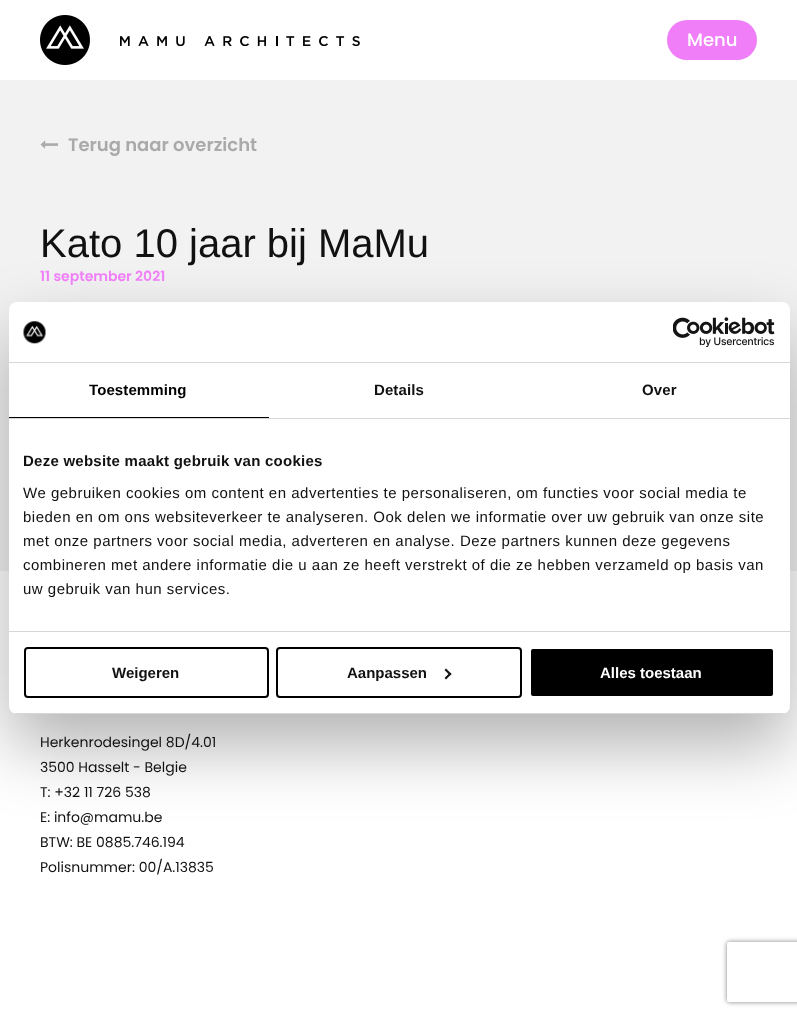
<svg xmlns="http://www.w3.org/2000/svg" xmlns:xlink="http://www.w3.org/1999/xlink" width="797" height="1016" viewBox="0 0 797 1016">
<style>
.cls-1{font:500 18px Poppins;fill:#ffffff}
.cls-2{font:600 18px Poppins;fill:#aaaaaa}
.cls-3{font:40px Liberation Sans;fill:#111111}
.cls-4{font:600 14px Poppins;fill:#ef7ef8}
.cls-5{font:14px Poppins;fill:#111111}
.cls-6{font:bold 15px Liberation Sans;letter-spacing:0.1px;fill:#000000}
.cls-7{font:bold 15px Liberation Sans;letter-spacing:0.1px;fill:#111111}
.cls-8{font:bold 15px Liberation Sans;letter-spacing:0.25px;fill:#111111}
.cls-9{font:15px Liberation Sans;letter-spacing:0.5px;fill:#111111}
.cls-10{font:bold 15px Liberation Sans;fill:#111111}
.cls-11{font:bold 15px Liberation Sans;fill:#ffffff}
</style>
<defs>
<clipPath id="clip1"><rect x="9" y="302" width="781" height="412" rx="8"/></clipPath>
<clipPath id="clip2"><path d="M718 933H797V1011H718ZM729 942H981C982 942 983 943 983 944V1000C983 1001 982 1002 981 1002H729C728 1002 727 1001 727 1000V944C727 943 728 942 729 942Z" clip-rule="evenodd"/></clipPath>
</defs>
<rect width="100%" height="100%" fill="#f3f2f2"/>
<rect fill="#ffffff" x="0" y="0" width="797" height="80"/>
<image xlink:href="image0.png" x="40" y="15" width="50" height="50"/>
<image xlink:href="image1.png" x="120" y="36" width="240" height="10"/>
<rect fill="#ef7ef8" x="667" y="20" width="90" height="40" rx="20"/>
<image xlink:href="image2.png" x="40" y="140" width="18" height="9"/>
<rect fill="#ffffff" x="0" y="571" width="797" height="445"/>
<rect fill="#000000" fill-opacity="0.3" filter="blur(34px)" x="9" y="334" width="781" height="412" rx="8"/>
<rect fill="#ffffff" x="9" y="302" width="781" height="412" rx="8"/>
<rect fill="#d6d6d6" x="9" y="362" width="781" height="1"/>
<image xlink:href="image3.png" x="23" y="321" width="23" height="23"/>
<image xlink:href="image4.png" x="673" y="317" width="102" height="30"/>
<rect fill="#d6d6d6" x="9" y="418" width="781" height="1"/>
<rect fill="#000000" x="9" y="417" width="260" height="1"/>
<rect fill="#d6d6d6" x="9" y="631" width="781" height="1"/>
<g clip-path="url(#clip1)">
<rect fill="#d6d6d6" x="9" y="713" width="781" height="1"/>
</g>
<rect fill="none" stroke="#000000" stroke-width="2" x="25" y="648" width="243" height="49" rx="3"/>
<rect fill="none" stroke="#000000" stroke-width="2" x="277" y="648" width="244" height="49" rx="3"/>
<path fill="#141414" d="M446 668.5L451.5 674L450 675.5L444.5 670Z"/>
<path fill="#141414" d="M450 672.5L451.5 674L446 679.5L444.5 678Z"/>
<rect fill="#000000" stroke="#ffffff" stroke-width="2" x="530" y="648" width="244" height="49" rx="3"/>
<g clip-path="url(#clip2)">
<rect fill="#808080" filter="blur(2.5px)" x="727" y="942" width="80" height="60" rx="2"/>
</g>
<text class="cls-1" x="687" y="46">Menu</text>
<text class="cls-2" x="68" y="151">Terug naar overzicht</text>
<text class="cls-3" x="40" y="257">Kato 10 jaar bij MaMu</text>
<text class="cls-4" x="40" y="281">11 september 2021</text>
<text class="cls-5"><tspan x="40" y="747">Herkenrodesingel 8D/4.01</tspan><tspan x="40" y="772">3500 Hasselt - Belgie</tspan><tspan x="40" y="797">T: +32 11 726 538</tspan><tspan x="40" y="822">E: info@mamu.be</tspan><tspan x="40" y="847">BTW: BE 0885.746.194</tspan><tspan x="40" y="872">Polisnummer: 00/A.13835</tspan></text>
<text class="cls-6" x="89" y="395">Toestemming</text>
<text class="cls-7" x="374" y="395">Details</text>
<text class="cls-7" x="642" y="395">Over</text>
<text class="cls-8" x="23" y="466">Deze website maakt gebruik van cookies</text>
<text class="cls-9"><tspan x="23" y="498">We gebruiken cookies om content en advertenties te personaliseren, om functies voor social media te</tspan><tspan x="23" y="522">bieden en om ons websiteverkeer te analyseren. Ook delen we informatie over uw gebruik van onze site</tspan><tspan x="23" y="546">met onze partners voor social media, adverteren en analyse. Deze partners kunnen deze gegevens</tspan><tspan x="23" y="570">combineren met andere informatie die u aan ze heeft verstrekt of die ze hebben verzameld op basis van</tspan><tspan x="23" y="594">uw gebruik van hun services.</tspan></text>
<text class="cls-10" x="112" y="678">Weigeren</text>
<text class="cls-10" x="347" y="678">Aanpassen</text>
<text class="cls-11" x="600" y="678">Alles toestaan</text>
</svg>
